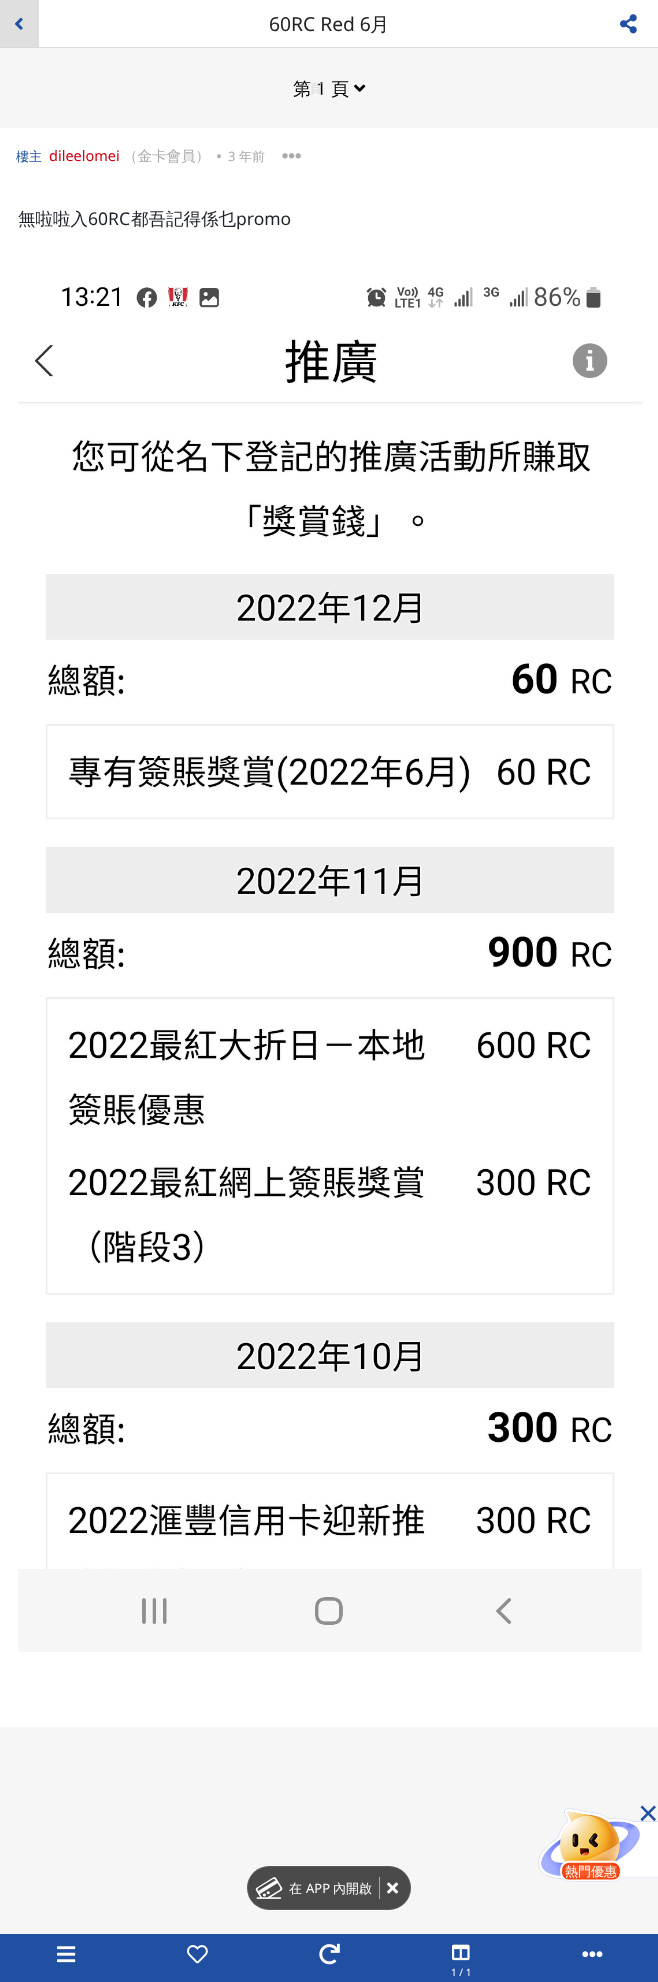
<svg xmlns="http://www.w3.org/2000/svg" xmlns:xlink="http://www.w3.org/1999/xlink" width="658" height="1982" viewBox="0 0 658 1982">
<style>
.cls-1{font:19.25px Noto Sans;fill:#222222}
.cls-2{font:500 19.25px WenQuanYi Zen Hei;fill:#222222}
.cls-3{font:500 18px WenQuanYi Zen Hei;fill:#000000}
.cls-4{font:18px Noto Sans;fill:#000000}
.cls-5{font:13px Liberation Sans;fill:#757575}
.cls-6{font:500 13px WenQuanYi Zen Hei;fill:#dbdbdb}
.cls-7{font:500 13px WenQuanYi Zen Hei;fill:#2150a2}
.cls-8{font:14.5px Noto Sans;fill:#cf000f}
.cls-9{font:500 14.5px WenQuanYi Zen Hei;fill:#aaaaaa}
.cls-10{font:16px Noto Sans;fill:#aaaaaa}
.cls-11{font:13px Noto Sans;fill:#aaaaaa}
.cls-12{font:500 13px WenQuanYi Zen Hei;fill:#aaaaaa}
.cls-13{font:500 17.5px WenQuanYi Zen Hei;fill:#1d2129}
.cls-14{font:17.5px Noto Sans;fill:#1d2129}
.cls-15{font:500 13px WenQuanYi Zen Hei;fill:#ffffff}
.cls-16{font:13px Noto Sans;fill:#ffffff}
.cls-17{font:10px Noto Sans;fill:#ffffff}
.cls-18{font:35px Liberation Sans;fill:#2150a2}
</style>
<rect width="100%" height="100%" fill="#f6f6f6"/>
<rect fill="#ffffff" x="39" y="0" width="619" height="47"/>
<rect fill="#d9d9d9" x="0" y="47" width="658" height="1"/>
<rect fill="#dfdfdf" x="0" y="0" width="39" height="47"/>
<image xlink:href="image0.png" x="15" y="17" width="8" height="13"/>
<image xlink:href="image1.png" x="620" y="14" width="17" height="20"/>
<image xlink:href="image2.png" x="354" y="84" width="12" height="8"/>
<rect fill="#ffffff" x="0" y="128" width="658" height="1599"/>
<image xlink:href="image3.png" x="282" y="153" width="19" height="6"/>
<image xlink:href="image4.png" x="18" y="286" width="624" height="1366"/>
<rect fill="#4a4a4a" x="247" y="1866" width="164" height="44" rx="22"/>
<rect fill="none" stroke="#ffffff" stroke-opacity="0.1" x="247.5" y="1866.5" width="163" height="43" rx="21.5"/>
<image xlink:href="image5.png" x="255" y="1877" width="28" height="22"/>
<rect fill="#a5a5a5" x="379" y="1877" width="1" height="22"/>
<image xlink:href="image6.png" x="387" y="1882" width="12" height="12"/>
<rect fill="#2150a2" x="0" y="1934" width="658" height="48"/>
<image xlink:href="image7.png" x="57" y="1946" width="19" height="17"/>
<image xlink:href="image8.png" x="187" y="1945" width="21" height="19"/>
<image xlink:href="image9.png" x="319" y="1943" width="21" height="22"/>
<image xlink:href="image10.png" x="582" y="1951" width="21" height="7"/>
<image xlink:href="image11.png" x="452" y="1944" width="18" height="17"/>
<image xlink:href="image12.png" x="538" y="1808" width="120" height="74"/>
<text class="cls-1" x="269" y="31">60RC Red 6</text>
<text class="cls-2" x="370" y="31">月</text>
<text class="cls-3" x="293" y="95">第</text>
<text class="cls-4" x="316" y="95">1</text>
<text class="cls-3" x="331" y="95">頁</text>
<text class="cls-5" x="298" y="93">1</text>
<text class="cls-6" x="309" y="93">頁</text>
<text class="cls-7" x="16" y="161">樓主</text>
<text class="cls-8" x="49" y="161">dileelomei</text>
<text class="cls-9" x="123" y="161">（金卡會員）</text>
<text class="cls-10" x="216" y="162">•</text>
<text class="cls-11" x="228" y="161">3</text>
<text class="cls-12" x="239" y="161">年前</text>
<text class="cls-13" x="18" y="225">無啦啦入</text>
<text class="cls-14" x="88" y="225">60RC</text>
<text class="cls-13" x="131" y="225">都吾記得係乜</text>
<text class="cls-14" x="236" y="225">promo</text>
<text class="cls-15" x="289" y="1893">在</text>
<text class="cls-16" x="306" y="1893">APP</text>
<text class="cls-15" x="333" y="1893">內開啟</text>
<text class="cls-17" x="451" y="1976">1 / 1</text>
<text class="cls-18" x="638" y="1825">×</text>
<text class="cls-15" x="565" y="1876">熱門優惠</text>
</svg>
